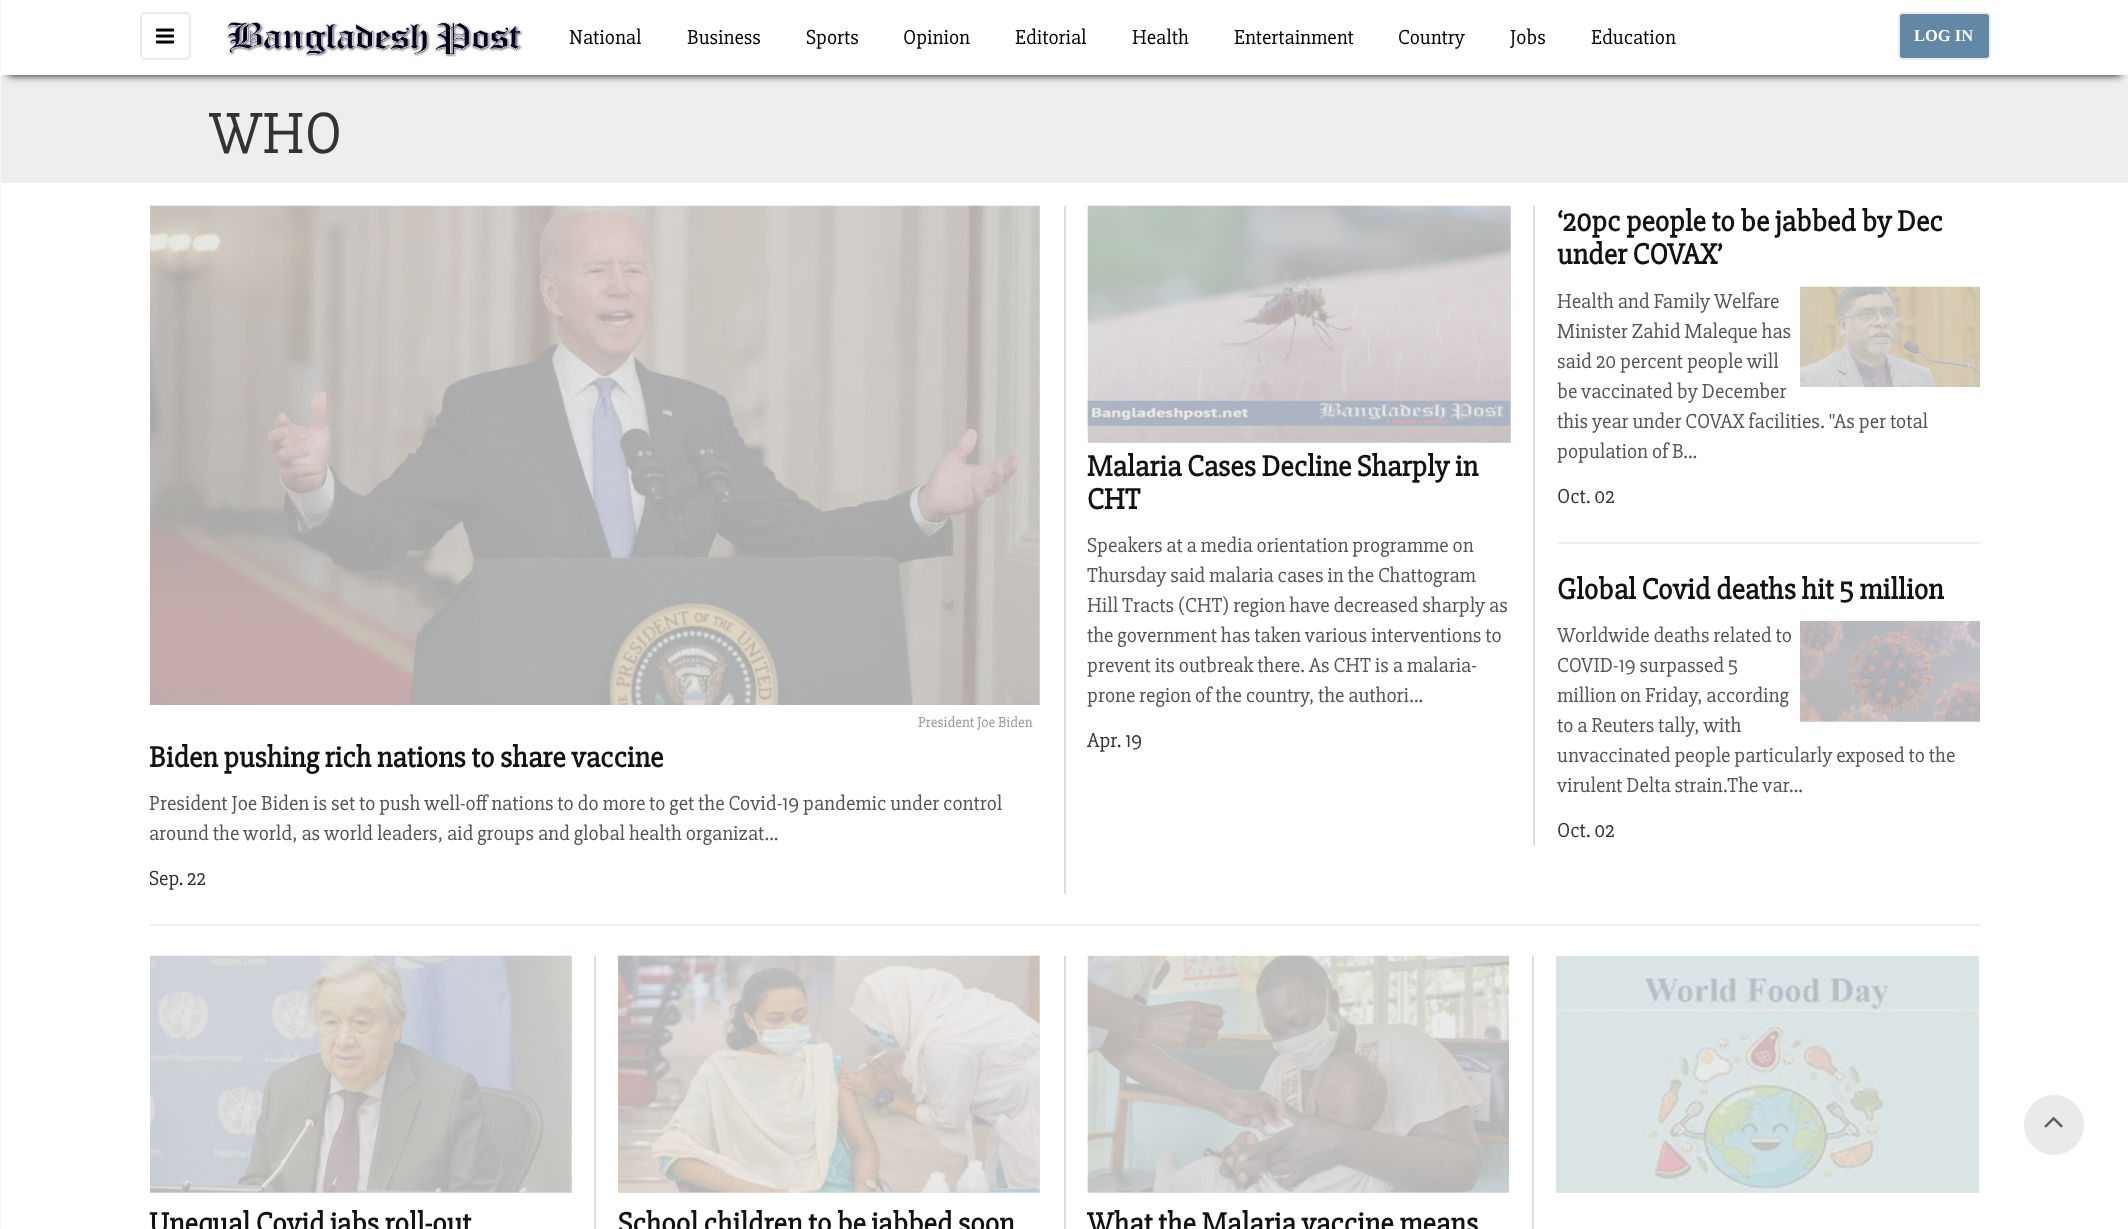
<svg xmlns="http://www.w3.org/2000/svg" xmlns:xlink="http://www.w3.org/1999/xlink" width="2128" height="1229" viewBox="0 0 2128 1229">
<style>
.cls-1{font:21px 'Slabo 27px';fill:#000000}
.cls-2{font:bold 16.5px Liberation Serif;fill:#ffffff}
.cls-3{font:60px 'Slabo 27px';fill:#333333}
.cls-4{font:15px 'Slabo 27px';fill:#999999}
.cls-5{font:bold 30px 'Slabo 27px';fill:#121212}
.cls-6{font:21px 'Slabo 27px';fill:#555555}
.cls-7{font:21px 'Slabo 27px';fill:#333333}
</style>
<rect width="100%" height="100%" fill="#ffffff"/>
<rect fill="#eeeeee" x="1" y="75" width="2127" height="108"/>
<rect fill="#000000" filter="blur(4px)" x="8" y="15" width="2113" height="60"/>
<rect fill="#f7f7f7" x="0" y="0" width="1" height="1229"/>
<rect fill="#ffffff" x="1" y="6" width="2127" height="69"/>
<rect fill="none" stroke="#ebebeb" stroke-width="2" x="141" y="13" width="49" height="46" rx="4"/>
<image xlink:href="image0.png" x="156" y="28" width="18" height="16"/>
<image xlink:href="image1.png" x="227" y="21" width="296" height="36"/>
<rect fill="#6288a5" stroke="#ebebeb" stroke-width="2" x="1899" y="13" width="91" height="46" rx="4"/>
<rect fill="#dddddd" x="1064" y="206" width="2" height="688"/>
<rect fill="#e0e0e0" x="150" y="206" width="890" height="499"/>
<image xlink:href="image2.png" x="150" y="205" width="890" height="500"/>
<rect fill="#e1e1e1" x="1088" y="206" width="423" height="237"/>
<image xlink:href="image3.png" x="1087" y="205" width="424" height="238"/>
<rect fill="#dddddd" x="1533" y="206" width="2" height="640"/>
<rect fill="#e1e1e1" x="1800" y="287" width="180" height="100"/>
<image xlink:href="image4.png" x="1800" y="286" width="180" height="101"/>
<rect fill="#eeeeee" x="1557" y="542" width="423" height="2"/>
<rect fill="#e1e1e1" x="1800" y="621" width="180" height="101"/>
<image xlink:href="image5.png" x="1800" y="621" width="180" height="101"/>
<rect fill="#eeeeee" x="150" y="924" width="1830" height="2"/>
<rect fill="#e5e5e5" x="1556" y="956" width="423" height="237"/>
<image xlink:href="image6.png" x="1555" y="955" width="424" height="238"/>
<rect fill="#dddddd" x="594" y="956" width="2" height="273"/>
<rect fill="#e4e4e4" x="150" y="956" width="422" height="237"/>
<image xlink:href="image7.png" x="150" y="955" width="422" height="238"/>
<rect fill="#dddddd" x="1064" y="956" width="2" height="273"/>
<rect fill="#e5e5e5" x="618" y="956" width="422" height="237"/>
<image xlink:href="image8.png" x="618" y="955" width="422" height="238"/>
<rect fill="#dddddd" x="1532" y="956" width="2" height="273"/>
<rect fill="#e5e5e5" x="1088" y="956" width="421" height="237"/>
<image xlink:href="image9.png" x="1087" y="955" width="422" height="238"/>
<circle fill="#eaeaea" cx="2054" cy="1125" r="30"/>
<image xlink:href="image10.png" x="2044" y="1116" width="19" height="12"/>
<text class="cls-1" x="569" y="44">National</text>
<text class="cls-1" x="687" y="44">Business</text>
<text class="cls-1" x="806" y="44">Sports</text>
<text class="cls-1" x="903" y="44">Opinion</text>
<text class="cls-1" x="1015" y="44">Editorial</text>
<text class="cls-1" x="1132" y="44">Health</text>
<text class="cls-1" x="1234" y="44">Entertainment</text>
<text class="cls-1" x="1398" y="44">Country</text>
<text class="cls-1" x="1510" y="44">Jobs</text>
<text class="cls-1" x="1591" y="44">Education</text>
<text class="cls-2" x="1914" y="41">LOG IN</text>
<text class="cls-3" x="209" y="153">WHO</text>
<text class="cls-4" x="918" y="727">President Joe Biden</text>
<text class="cls-5" x="149" y="767">Biden pushing rich nations to share vaccine</text>
<text class="cls-6"><tspan x="149" y="810">President Joe Biden is set to push well-off nations to do more to get the Covid-19 pandemic under control</tspan><tspan x="149" y="840">around the world, as world leaders, aid groups and global health organizat...</tspan></text>
<text class="cls-7" x="149" y="885">Sep. 22</text>
<text class="cls-5"><tspan x="1087" y="476">Malaria Cases Decline Sharply in</tspan><tspan x="1087" y="509">CHT</tspan></text>
<text class="cls-6"><tspan x="1087" y="552">Speakers at a media orientation programme on</tspan><tspan x="1087" y="582">Thursday said malaria cases in the Chattogram</tspan><tspan x="1087" y="612">Hill Tracts (CHT) region have decreased sharply as</tspan><tspan x="1087" y="642">the government has taken various interventions to</tspan><tspan x="1087" y="672">prevent its outbreak there. As CHT is a malaria-</tspan><tspan x="1087" y="702">prone region of the country, the authori...</tspan></text>
<text class="cls-7" x="1087" y="747">Apr. 19</text>
<text class="cls-5"><tspan x="1557" y="231">‘20pc people to be jabbed by Dec</tspan><tspan x="1557" y="264">under COVAX’</tspan></text>
<text class="cls-6"><tspan x="1557" y="308">Health and Family Welfare</tspan><tspan x="1557" y="338">Minister Zahid Maleque has</tspan><tspan x="1557" y="368">said 20 percent people will</tspan><tspan x="1557" y="398">be vaccinated by December</tspan><tspan x="1557" y="428">this year under COVAX facilities. "As per total</tspan><tspan x="1557" y="458">population of B...</tspan></text>
<text class="cls-7" x="1557" y="503">Oct. 02</text>
<text class="cls-5" x="1557" y="599">Global Covid deaths hit 5 million</text>
<text class="cls-6"><tspan x="1557" y="642">Worldwide deaths related to</tspan><tspan x="1557" y="672">COVID-19 surpassed 5</tspan><tspan x="1557" y="702">million on Friday, according</tspan><tspan x="1557" y="732">to a Reuters tally, with</tspan><tspan x="1557" y="762">unvaccinated people particularly exposed to the</tspan><tspan x="1557" y="792">virulent Delta strain.The var...</tspan></text>
<text class="cls-7" x="1557" y="837">Oct. 02</text>
<text class="cls-5" x="149" y="1233">Unequal Covid jabs roll-out</text>
<text class="cls-5" x="618" y="1233">School children to be jabbed soon</text>
<text class="cls-5" x="1087" y="1233">What the Malaria vaccine means</text>
</svg>
